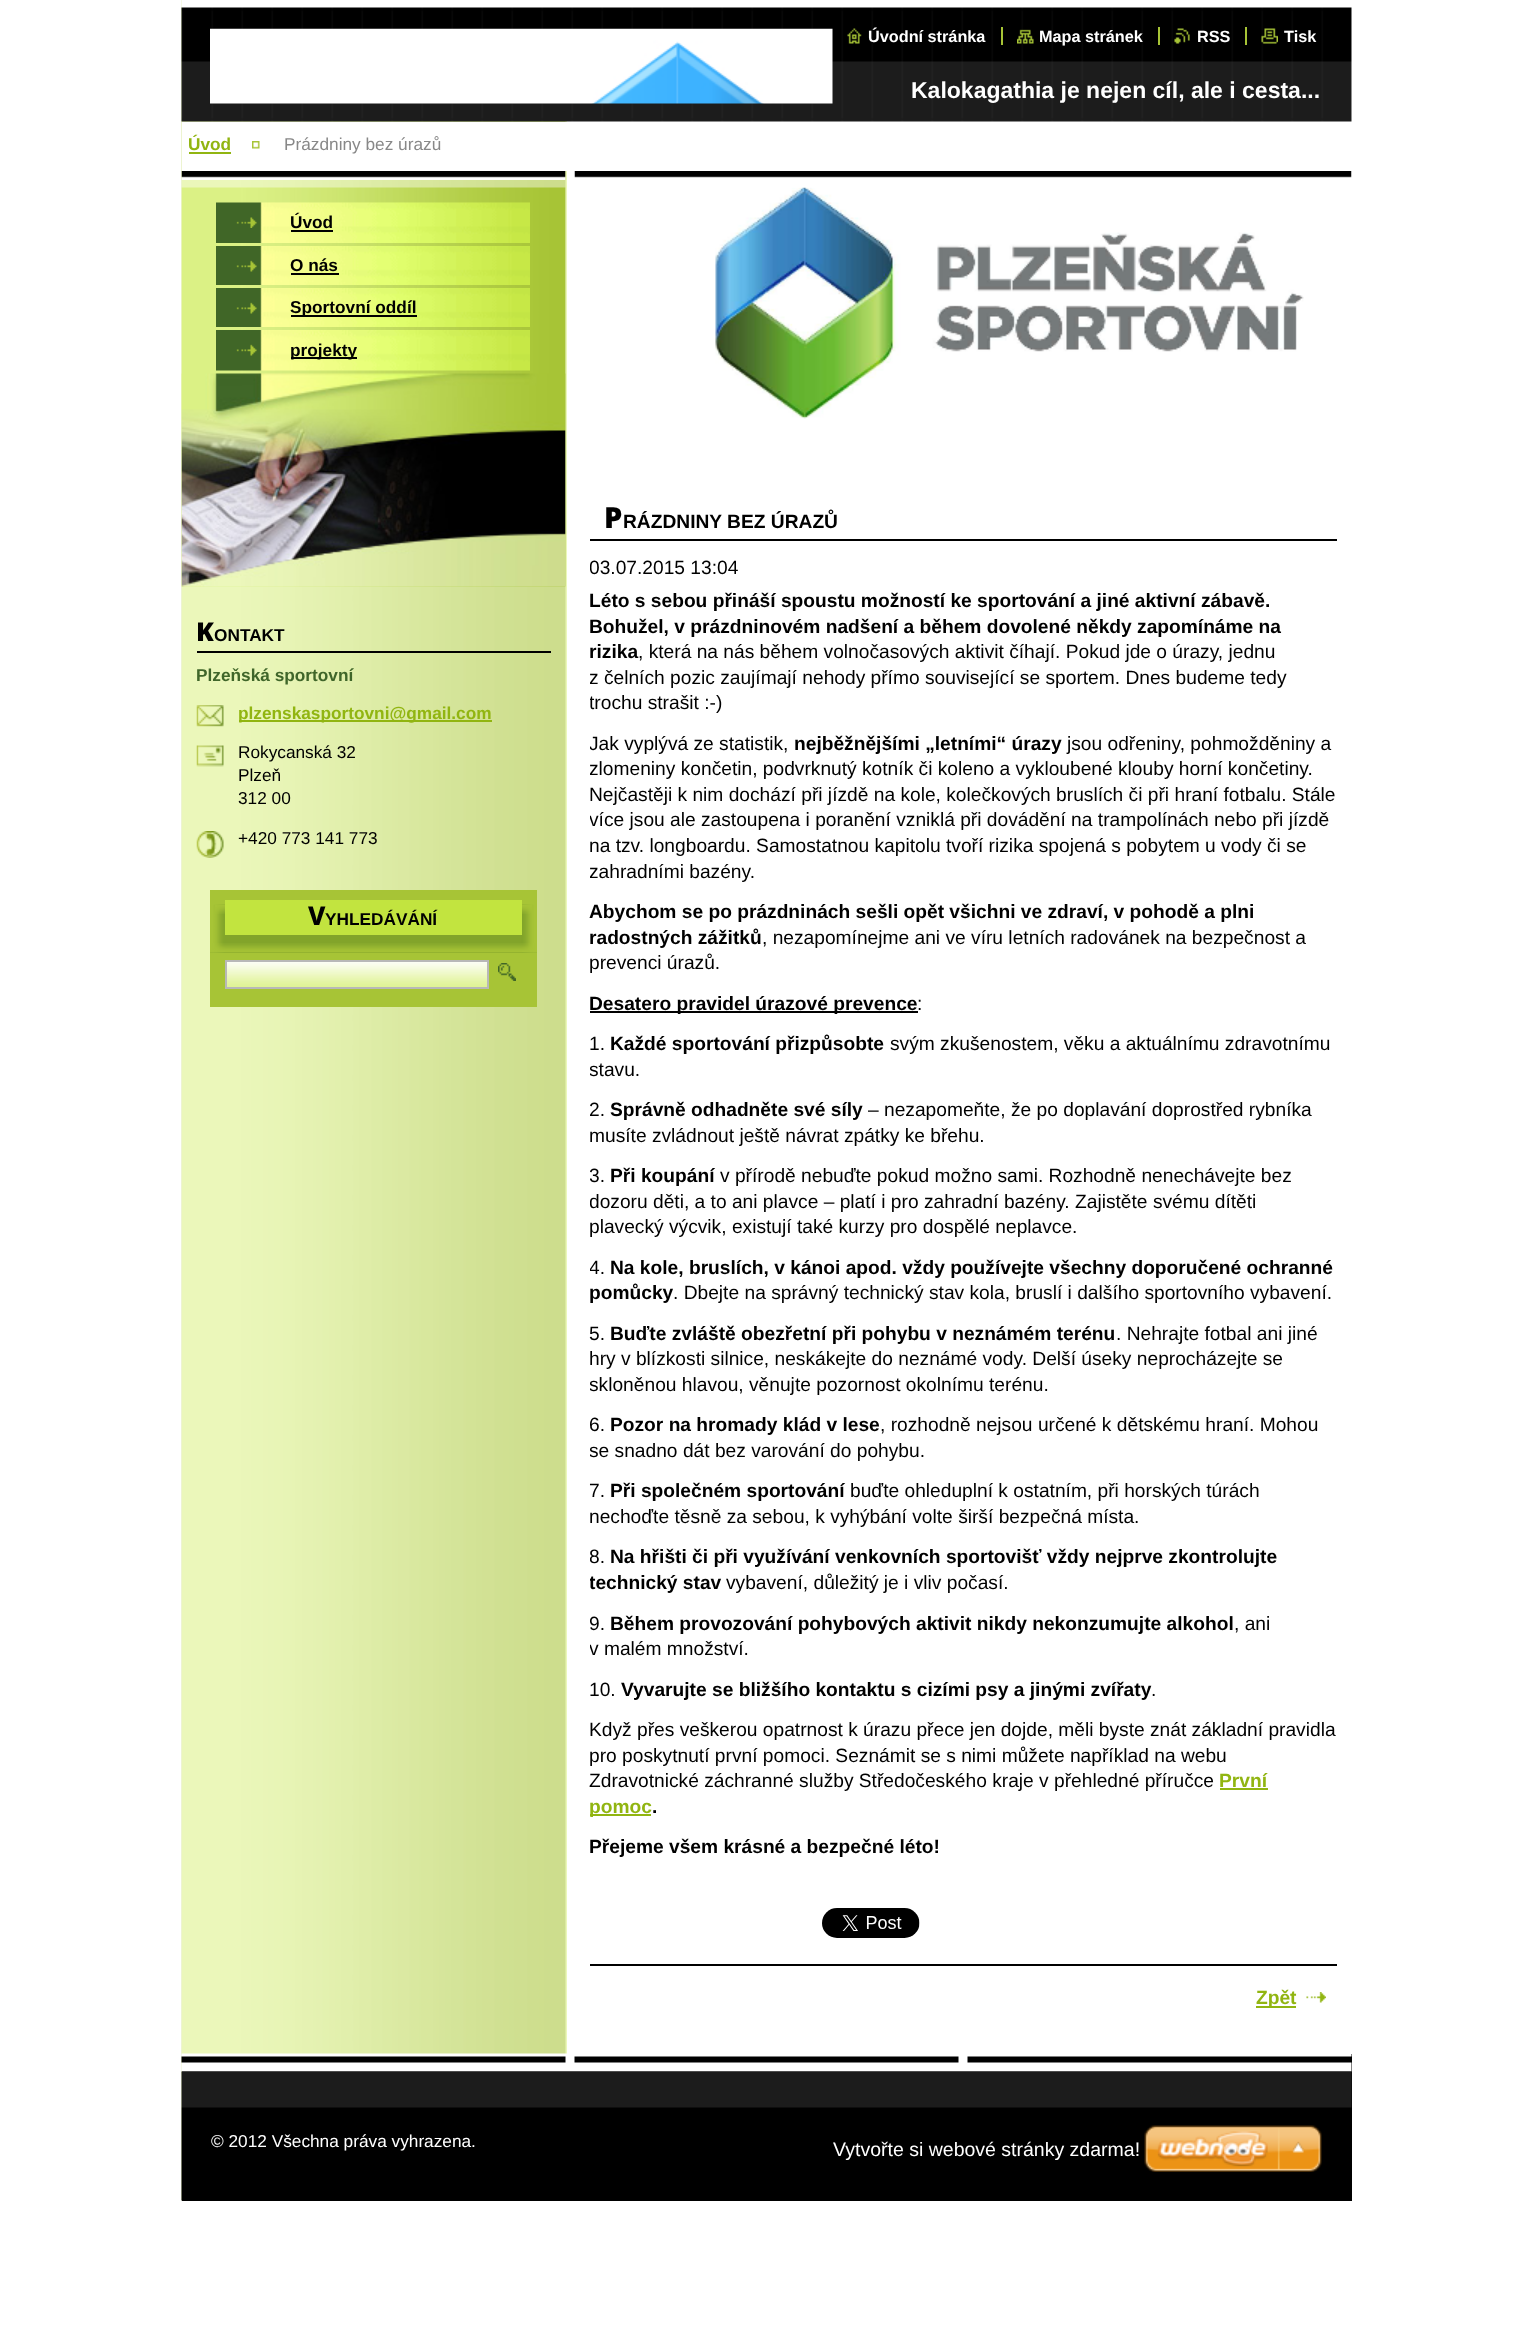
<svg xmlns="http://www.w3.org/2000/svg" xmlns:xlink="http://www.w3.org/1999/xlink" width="1531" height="2328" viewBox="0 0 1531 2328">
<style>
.cls-1{font:bold 16.25px Liberation Sans;fill:#ffffff}
.cls-2{font:bold 23px Liberation Sans;fill:#ffffff}
.cls-3{font:bold 17.25px Liberation Sans;fill:#91b511}
.cls-4{font:17.25px Liberation Sans;fill:#888888}
.cls-5{font:bold 17.25px Liberation Sans;fill:#000000}
.cls-6{font:900 26px Noto Sans;fill:#000000}
.cls-7{font:bold 17.25px Liberation Sans;fill:#40662a}
.cls-8{font:17.25px Liberation Sans;fill:#000000}
.cls-9{font:800 26px Noto Sans;fill:#000000}
.cls-10{font:900 29px Noto Sans;fill:#000000}
.cls-11{font:bold 19.2px Liberation Sans;fill:#000000}
.cls-12{font:19.2px Liberation Sans;fill:#000000}
.cls-13{font:bold 19.2px Liberation Sans;fill:#91b511}
.cls-14{font:17.25px Liberation Sans;fill:#ffffff}
.cls-15{font:19.5px Liberation Sans;fill:#ffffff}
</style>
<defs>
<clipPath id="clip1"><rect x="197" y="657" width="354" height="203"/></clipPath>
<clipPath id="clip2"><rect x="590" y="555" width="747" height="1353"/></clipPath>
</defs>
<rect width="100%" height="100%" fill="#ffffff"/>
<image xlink:href="image0.png" x="181" y="0" width="386" height="2201"/>
<image xlink:href="image1.png" x="181" y="0" width="1171" height="122"/>
<image xlink:href="image2.png" x="210" y="28" width="623" height="76"/>
<image xlink:href="image3.png" x="847" y="28" width="15" height="16"/>
<image xlink:href="image4.png" x="1017" y="29" width="17" height="15"/>
<rect fill="#a7c436" x="1001" y="27" width="2" height="18"/>
<image xlink:href="image5.png" x="1174" y="28" width="16" height="16"/>
<rect fill="#a7c436" x="1158" y="27" width="2" height="18"/>
<image xlink:href="image6.png" x="1261" y="28" width="17" height="16"/>
<rect fill="#a7c436" x="1245" y="27" width="2" height="18"/>
<rect fill="#ffffff" x="182" y="122" width="385" height="49"/>
<rect fill="#91b511" x="189" y="152" width="42" height="2"/>
<image xlink:href="image7.png" x="252" y="141" width="8" height="8"/>
<image xlink:href="image8.png" x="181" y="171" width="385" height="9"/>
<image xlink:href="image9.png" x="181" y="187" width="385" height="400"/>
<image xlink:href="image10.png" x="216" y="202" width="314" height="41"/>
<image xlink:href="image11.png" x="236" y="217" width="21" height="11"/>
<rect fill="#000000" x="291" y="230" width="42" height="2"/>
<image xlink:href="image12.png" x="216" y="246" width="314" height="39"/>
<image xlink:href="image13.png" x="236" y="260" width="21" height="12"/>
<rect fill="#000000" x="291" y="273" width="48" height="2"/>
<image xlink:href="image14.png" x="216" y="288" width="314" height="39"/>
<image xlink:href="image13.png" x="236" y="302" width="21" height="12"/>
<rect fill="#000000" x="291" y="315" width="126" height="2"/>
<image xlink:href="image15.png" x="216" y="330" width="314" height="41"/>
<image xlink:href="image13.png" x="236" y="344" width="21" height="12"/>
<rect fill="#000000" x="291" y="357" width="66" height="2"/>
<image xlink:href="image16.png" x="181" y="373" width="385" height="214"/>
<rect fill="#000000" x="197" y="651" width="354" height="2"/>
<image xlink:href="image17.png" x="196" y="705" width="28" height="22"/>
<rect fill="#91b511" x="239" y="720" width="253" height="2"/>
<image xlink:href="image18.png" x="196" y="745" width="28" height="22"/>
<image xlink:href="image19.png" x="196" y="831" width="28" height="27"/>
<rect fill="#a7c436" x="210" y="890" width="327" height="117"/>
<rect fill="#82a42a" x="210" y="914" width="327" height="39"/>
<image xlink:href="image20.png" x="210" y="904" width="327" height="49"/>
<image xlink:href="image21.png" x="215" y="904" width="317" height="10"/>
<rect fill="#c2e43f" x="225" y="900" width="297" height="35"/>
<image xlink:href="image22.png" x="210" y="943" width="327" height="10"/>
<image xlink:href="image23.png" x="227" y="962" width="260" height="25"/>
<rect fill="none" stroke="#b8b8b8" stroke-width="2" x="226" y="961" width="262" height="27"/>
<image xlink:href="image24.png" x="498" y="963" width="18" height="18"/>
<image xlink:href="image25.png" x="574" y="171" width="778" height="7"/>
<image xlink:href="image26.png" x="715" y="187" width="589" height="232"/>
<rect fill="#000000" x="590" y="539" width="747" height="2"/>
<rect fill="#000000" x="590" y="1011" width="328" height="2"/>
<rect fill="#91b511" x="1220" y="1788" width="48" height="2"/>
<rect fill="#91b511" x="590" y="1814" width="61" height="2"/>
<image xlink:href="image27.png" x="822" y="1908" width="98" height="30"/>
<rect fill="#000000" x="590" y="1964" width="747" height="2"/>
<rect fill="#91b511" x="1256" y="2006" width="40" height="2"/>
<image xlink:href="image28.png" x="1306" y="1992" width="20" height="11"/>
<rect fill="#000000" x="182" y="2054" width="1170" height="147"/>
<image xlink:href="image29.png" x="181" y="2053" width="1171" height="19"/>
<image xlink:href="image30.png" x="181" y="2071" width="1171" height="130"/>
<image xlink:href="image31.png" x="1144" y="2125" width="178" height="47"/>
<text class="cls-1" x="868" y="42">Úvodní stránka</text>
<text class="cls-1" x="1039" y="42">Mapa stránek</text>
<text class="cls-1" x="1197" y="42">RSS</text>
<text class="cls-1" x="1284" y="42">Tisk</text>
<text class="cls-2" x="911" y="98">Kalokagathia je nejen cíl, ale i cesta...</text>
<text class="cls-3" x="188" y="150">Úvod</text>
<text class="cls-4" x="284" y="150">Prázdniny bez úrazů</text>
<text class="cls-5" x="290" y="228">Úvod</text>
<text class="cls-5" x="290" y="271">O nás</text>
<text class="cls-5" x="290" y="313">Sportovní oddíl</text>
<text class="cls-5" x="290" y="356">projekty</text>
<text class="cls-6" x="196" y="641">K</text>
<text class="cls-5" x="214" y="641">ONTAKT</text>
<g clip-path="url(#clip1)">
<text class="cls-7" x="196" y="681">Plzeňská sportovní</text>
</g>
<text class="cls-3" x="238" y="719">plzenskasportovni@gmail.com</text>
<text class="cls-8"><tspan x="238" y="758">Rokycanská 32</tspan><tspan x="238" y="781">Plzeň</tspan><tspan x="238" y="804">312 00</tspan></text>
<text class="cls-8" x="238" y="844">+420 773 141 773</text>
<text class="cls-9" x="308" y="925">V</text>
<text class="cls-5" x="325" y="925">YHLEDÁVÁNÍ</text>
<text class="cls-10" x="604" y="528">P</text>
<text class="cls-11" x="623" y="528">RÁZDNINY BEZ ÚRAZŮ</text>
<g clip-path="url(#clip2)">
<text class="cls-12" x="589" y="574">03.07.2015 13:04</text>
</g>
<text class="cls-11"><tspan x="589" y="607">Léto s sebou přináší spoustu možností ke sportování a jiné aktivní zábavě.</tspan><tspan x="589" y="633">Bohužel, v prázdninovém nadšení a během dovolené někdy zapomínáme na</tspan><tspan x="589" y="658">rizika</tspan></text>
<text class="cls-12" x="638" y="658">, která na nás během volnočasových aktivit číhají. Pokud jde o úrazy, jednu</text>
<g clip-path="url(#clip2)">
<text class="cls-12"><tspan x="589" y="684">z čelních pozic zaujímají nehody přímo související se sportem. Dnes budeme tedy</tspan><tspan x="589" y="709">trochu strašit :-)</tspan></text>
<text class="cls-12" x="589" y="750">Jak vyplývá ze statistik,</text>
</g>
<text class="cls-11" x="794" y="750">nejběžnějšími „letními“ úrazy</text>
<text class="cls-12" x="1067" y="750">jsou odřeniny, pohmožděniny a</text>
<g clip-path="url(#clip2)">
<text class="cls-12" x="589" y="775">zlomeniny končetin, podvrknutý kotník či koleno a vykloubené klouby horní končetiny.</text>
</g>
<text class="cls-12" x="589" y="801">Nejčastěji k nim dochází při jízdě na kole, kolečkových bruslích či při hraní fotbalu. Stále</text>
<g clip-path="url(#clip2)">
<text class="cls-12" x="589" y="826">více jsou ale zastoupena i poranění vzniklá při dovádění na trampolínách nebo při jízdě</text>
</g>
<text class="cls-12" x="589" y="852">na tzv. longboardu. Samostatnou kapitolu tvoří rizika spojená s pobytem u vody či se</text>
<g clip-path="url(#clip2)">
<text class="cls-12" x="589" y="878">zahradními bazény.</text>
</g>
<text class="cls-11"><tspan x="589" y="918">Abychom se po prázdninách sešli opět všichni ve zdraví, v pohodě a plni</tspan><tspan x="589" y="944">radostných zážitků</tspan></text>
<text class="cls-12" x="762" y="944">, nezapomínejme ani ve víru letních radovánek na bezpečnost a</text>
<text class="cls-12" x="589" y="969">prevenci úrazů.</text>
<text class="cls-11" x="589" y="1010">Desatero pravidel úrazové prevence</text>
<text class="cls-12" x="917" y="1010">:</text>
<text class="cls-12" x="589" y="1050">1.</text>
<text class="cls-11" x="610" y="1050">Každé sportování přizpůsobte</text>
<text class="cls-12" x="890" y="1050">svým zkušenostem, věku a aktuálnímu zdravotnímu</text>
<g clip-path="url(#clip2)">
<text class="cls-12" x="589" y="1076">stavu.</text>
<text class="cls-12" x="589" y="1116">2.</text>
</g>
<text class="cls-11" x="610" y="1116">Správně odhadněte své síly</text>
<text class="cls-12" x="868" y="1116">– nezapomeňte, že po doplavání doprostřed rybníka</text>
<text class="cls-12" x="589" y="1142">musíte zvládnout ještě návrat zpátky ke břehu.</text>
<g clip-path="url(#clip2)">
<text class="cls-12" x="589" y="1182">3.</text>
</g>
<text class="cls-11" x="610" y="1182">Při koupání</text>
<text class="cls-12" x="720" y="1182">v přírodě nebuďte pokud možno sami. Rozhodně nenechávejte bez</text>
<g clip-path="url(#clip2)">
<text class="cls-12" x="589" y="1208">dozoru děti, a to ani plavce – platí i pro zahradní bazény. Zajistěte svému dítěti</text>
</g>
<text class="cls-12" x="589" y="1233">plavecký výcvik, existují také kurzy pro dospělé neplavce.</text>
<g clip-path="url(#clip2)">
<text class="cls-12" x="589" y="1274">4.</text>
</g>
<text class="cls-11" x="610" y="1274">Na kole, bruslích, v kánoi apod. vždy používejte všechny doporučené ochranné</text>
<text class="cls-11" x="589" y="1299">pomůcky</text>
<text class="cls-12" x="673" y="1299">. Dbejte na správný technický stav kola, bruslí i dalšího sportovního vybavení.</text>
<text class="cls-12" x="589" y="1340">5.</text>
<text class="cls-11" x="610" y="1340">Buďte zvláště obezřetní při pohybu v neznámém terénu</text>
<text class="cls-12" x="1116" y="1340">. Nehrajte fotbal ani jiné</text>
<text class="cls-12" x="589" y="1365">hry v blízkosti silnice, neskákejte do neznámé vody. Delší úseky neprocházejte se</text>
<g clip-path="url(#clip2)">
<text class="cls-12" x="589" y="1391">skloněnou hlavou, věnujte pozornost okolnímu terénu.</text>
<text class="cls-12" x="589" y="1431">6.</text>
</g>
<text class="cls-11" x="610" y="1431">Pozor na hromady klád v lese</text>
<text class="cls-12" x="880" y="1431">, rozhodně nejsou určené k dětskému hraní. Mohou</text>
<g clip-path="url(#clip2)">
<text class="cls-12" x="589" y="1457">se snadno dát bez varování do pohybu.</text>
</g>
<text class="cls-12" x="589" y="1497">7.</text>
<text class="cls-11" x="610" y="1497">Při společném sportování</text>
<text class="cls-12" x="850" y="1497">buďte ohleduplní k ostatním, při horských túrách</text>
<text class="cls-12" x="589" y="1523">nechoďte těsně za sebou, k vyhýbání volte širší bezpečná místa.</text>
<g clip-path="url(#clip2)">
<text class="cls-12" x="589" y="1563">8.</text>
</g>
<text class="cls-11" x="610" y="1563">Na hřišti či při využívání venkovních sportovišť vždy nejprve zkontrolujte</text>
<g clip-path="url(#clip2)">
<text class="cls-11" x="589" y="1589">technický stav</text>
</g>
<text class="cls-12" x="726" y="1589">vybavení, důležitý je i vliv počasí.</text>
<g clip-path="url(#clip2)">
<text class="cls-12" x="589" y="1630">9.</text>
</g>
<text class="cls-11" x="610" y="1630">Během provozování pohybových aktivit nikdy nekonzumujte alkohol</text>
<text class="cls-12" x="1234" y="1630">, ani</text>
<g clip-path="url(#clip2)">
<text class="cls-12" x="589" y="1655">v malém množství.</text>
</g>
<text class="cls-12" x="589" y="1696">10.</text>
<text class="cls-11" x="621" y="1696">Vyvarujte se bližšího kontaktu s cizími psy a jinými zvířaty</text>
<text class="cls-12" x="1151" y="1696">.</text>
<text class="cls-12"><tspan x="589" y="1736">Když přes veškerou opatrnost k úrazu přece jen dojde, měli byste znát základní pravidla</tspan><tspan x="589" y="1762">pro poskytnutí první pomoci. Seznámit se s nimi můžete například na webu</tspan><tspan x="589" y="1787">Zdravotnické záchranné služby Středočeského kraje v přehledné příručce</tspan></text>
<text class="cls-13" x="1219" y="1787">První</text>
<text class="cls-13" x="589" y="1813">pomoc</text>
<text class="cls-11" x="652" y="1813">.</text>
<text class="cls-11" x="589" y="1853">Přejeme všem krásné a bezpečné léto!</text>
<text class="cls-13" x="1256" y="2004">Zpět</text>
<text class="cls-14" x="211" y="2147">© 2012 Všechna práva vyhrazena.</text>
<text class="cls-15" x="833" y="2156">Vytvořte si webové stránky zdarma!</text>
</svg>
